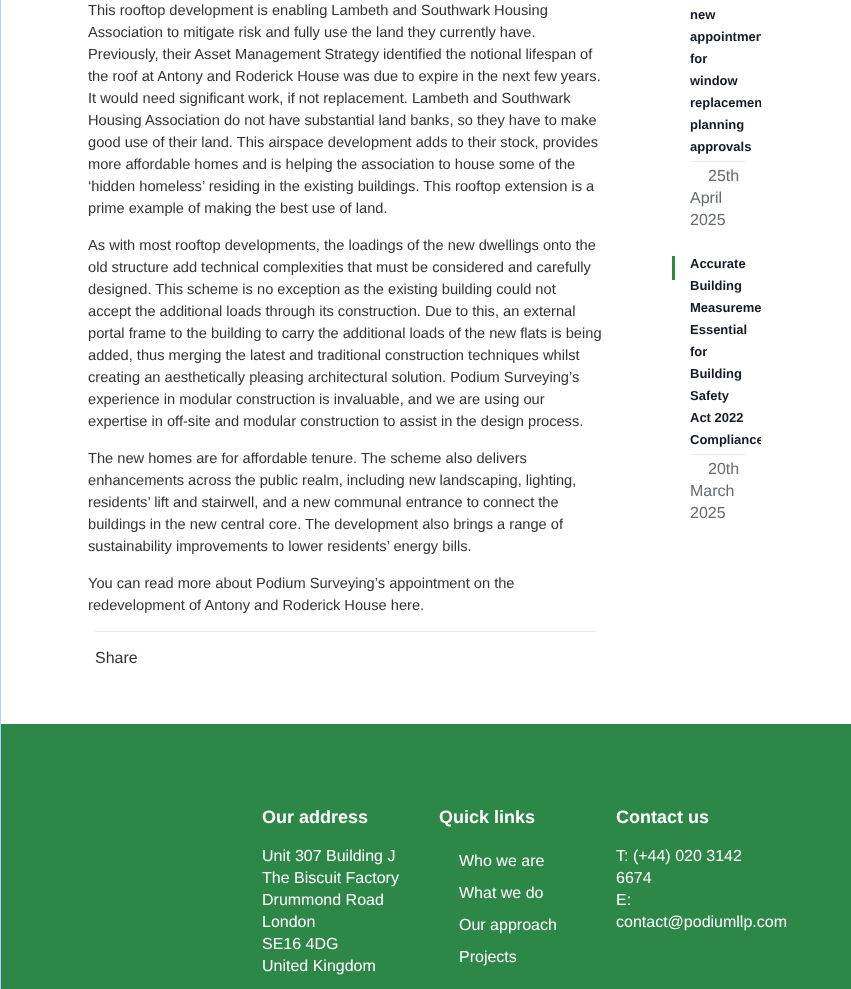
<svg xmlns="http://www.w3.org/2000/svg" xmlns:xlink="http://www.w3.org/1999/xlink" width="851" height="989" viewBox="0 0 851 989">
<style>
.cls-1{font:14.65px Liberation Sans;fill:#333333}
.cls-2{font:16px Liberation Sans;fill:#333333}
.cls-3{font:bold 13px Liberation Sans;fill:#141b26}
.cls-4{font:16px Liberation Sans;fill:#656b6f}
.cls-5{font:bold 18px Liberation Sans;fill:#ffffff}
.cls-6{font:16px Liberation Sans;fill:#ffffff}
</style>
<defs>
<clipPath id="clip1"><rect x="639" y="0" width="122" height="236"/></clipPath>
<clipPath id="clip2"><rect x="639" y="256" width="122" height="273"/></clipPath>
</defs>
<rect width="100%" height="100%" fill="#ffffff"/>
<rect fill="none" stroke="#a8d2f5" x="0.5" y="-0.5" width="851" height="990"/>
<rect fill="#ebebeb" x="95" y="631" width="501" height="1"/>
<rect fill="#ebebeb" x="690" y="161" width="55" height="1"/>
<rect fill="#2d8746" x="672" y="256" width="3" height="24"/>
<rect fill="#ebebeb" x="690" y="454" width="55" height="1"/>
<rect fill="#2d8746" x="1" y="724" width="850" height="265"/>
<text class="cls-1"><tspan x="88" y="15">This rooftop development is enabling Lambeth and Southwark Housing</tspan><tspan x="88" y="37">Association to mitigate risk and fully use the land they currently have.</tspan><tspan x="88" y="59">Previously, their Asset Management Strategy identified the notional lifespan of</tspan><tspan x="88" y="81">the roof at Antony and Roderick House was due to expire in the next few years.</tspan><tspan x="88" y="103">It would need significant work, if not replacement. Lambeth and Southwark</tspan><tspan x="88" y="125">Housing Association do not have substantial land banks, so they have to make</tspan><tspan x="88" y="147">good use of their land. This airspace development adds to their stock, provides</tspan><tspan x="88" y="169">more affordable homes and is helping the association to house some of the</tspan><tspan x="88" y="191">‘hidden homeless’ residing in the existing buildings. This rooftop extension is a</tspan><tspan x="88" y="213">prime example of making the best use of land.</tspan></text>
<text class="cls-1"><tspan x="88" y="250">As with most rooftop developments, the loadings of the new dwellings onto the</tspan><tspan x="88" y="272">old structure add technical complexities that must be considered and carefully</tspan><tspan x="88" y="294">designed. This scheme is no exception as the existing building could not</tspan><tspan x="88" y="316">accept the additional loads through its construction. Due to this, an external</tspan><tspan x="88" y="338">portal frame to the building to carry the additional loads of the new flats is being</tspan><tspan x="88" y="360">added, thus merging the latest and traditional construction techniques whilst</tspan><tspan x="88" y="382">creating an aesthetically pleasing architectural solution. Podium Surveying’s</tspan><tspan x="88" y="404">experience in modular construction is invaluable, and we are using our</tspan><tspan x="88" y="426">expertise in off-site and modular construction to assist in the design process.</tspan></text>
<text class="cls-1"><tspan x="88" y="463">The new homes are for affordable tenure. The scheme also delivers</tspan><tspan x="88" y="485">enhancements across the public realm, including new landscaping, lighting,</tspan><tspan x="88" y="507">residents’ lift and stairwell, and a new communal entrance to connect the</tspan><tspan x="88" y="529">buildings in the new central core. The development also brings a range of</tspan><tspan x="88" y="551">sustainability improvements to lower residents’ energy bills.</tspan></text>
<text class="cls-1"><tspan x="88" y="588">You can read more about Podium Surveying’s appointment on the</tspan><tspan x="88" y="610">redevelopment of Antony and Roderick House here.</tspan></text>
<text class="cls-2" x="95" y="663">Share</text>
<text class="cls-3" x="690" y="19">new</text>
<g clip-path="url(#clip1)">
<text class="cls-3" x="690" y="41">appointmen</text>
</g>
<text class="cls-3"><tspan x="690" y="63">for</tspan><tspan x="690" y="85">window</tspan></text>
<g clip-path="url(#clip1)">
<text class="cls-3" x="690" y="107">replacemen</text>
</g>
<text class="cls-3"><tspan x="690" y="129">planning</tspan><tspan x="690" y="151">approvals</tspan></text>
<text class="cls-4" x="708" y="181">25th</text>
<text class="cls-4"><tspan x="690" y="203">April</tspan><tspan x="690" y="225">2025</tspan></text>
<text class="cls-3"><tspan x="690" y="268">Accurate</tspan><tspan x="690" y="290">Building</tspan><tspan x="690" y="312">Measureme</tspan><tspan x="690" y="334">Essential</tspan><tspan x="690" y="356">for</tspan><tspan x="690" y="378">Building</tspan><tspan x="690" y="400">Safety</tspan><tspan x="690" y="422">Act 2022</tspan></text>
<g clip-path="url(#clip2)">
<text class="cls-3" x="690" y="444">Compliance</text>
</g>
<text class="cls-4" x="708" y="474">20th</text>
<text class="cls-4"><tspan x="690" y="496">March</tspan><tspan x="690" y="518">2025</tspan></text>
<text class="cls-5" x="262" y="823">Our address</text>
<text class="cls-6"><tspan x="262" y="861">Unit 307 Building J</tspan><tspan x="262" y="883">The Biscuit Factory</tspan><tspan x="262" y="905">Drummond Road</tspan><tspan x="262" y="927">London</tspan><tspan x="262" y="949">SE16 4DG</tspan><tspan x="262" y="971">United Kingdom</tspan></text>
<text class="cls-5" x="439" y="823">Quick links</text>
<text class="cls-6" x="459" y="866">Who we are</text>
<text class="cls-6" x="459" y="898">What we do</text>
<text class="cls-6" x="459" y="930">Our approach</text>
<text class="cls-6" x="459" y="962">Projects</text>
<text class="cls-5" x="616" y="823">Contact us</text>
<text class="cls-6"><tspan x="616" y="861">T: (+44) 020 3142</tspan><tspan x="616" y="883">6674</tspan><tspan x="616" y="905">E:</tspan><tspan x="616" y="927">contact@podiumllp.com</tspan></text>
</svg>
